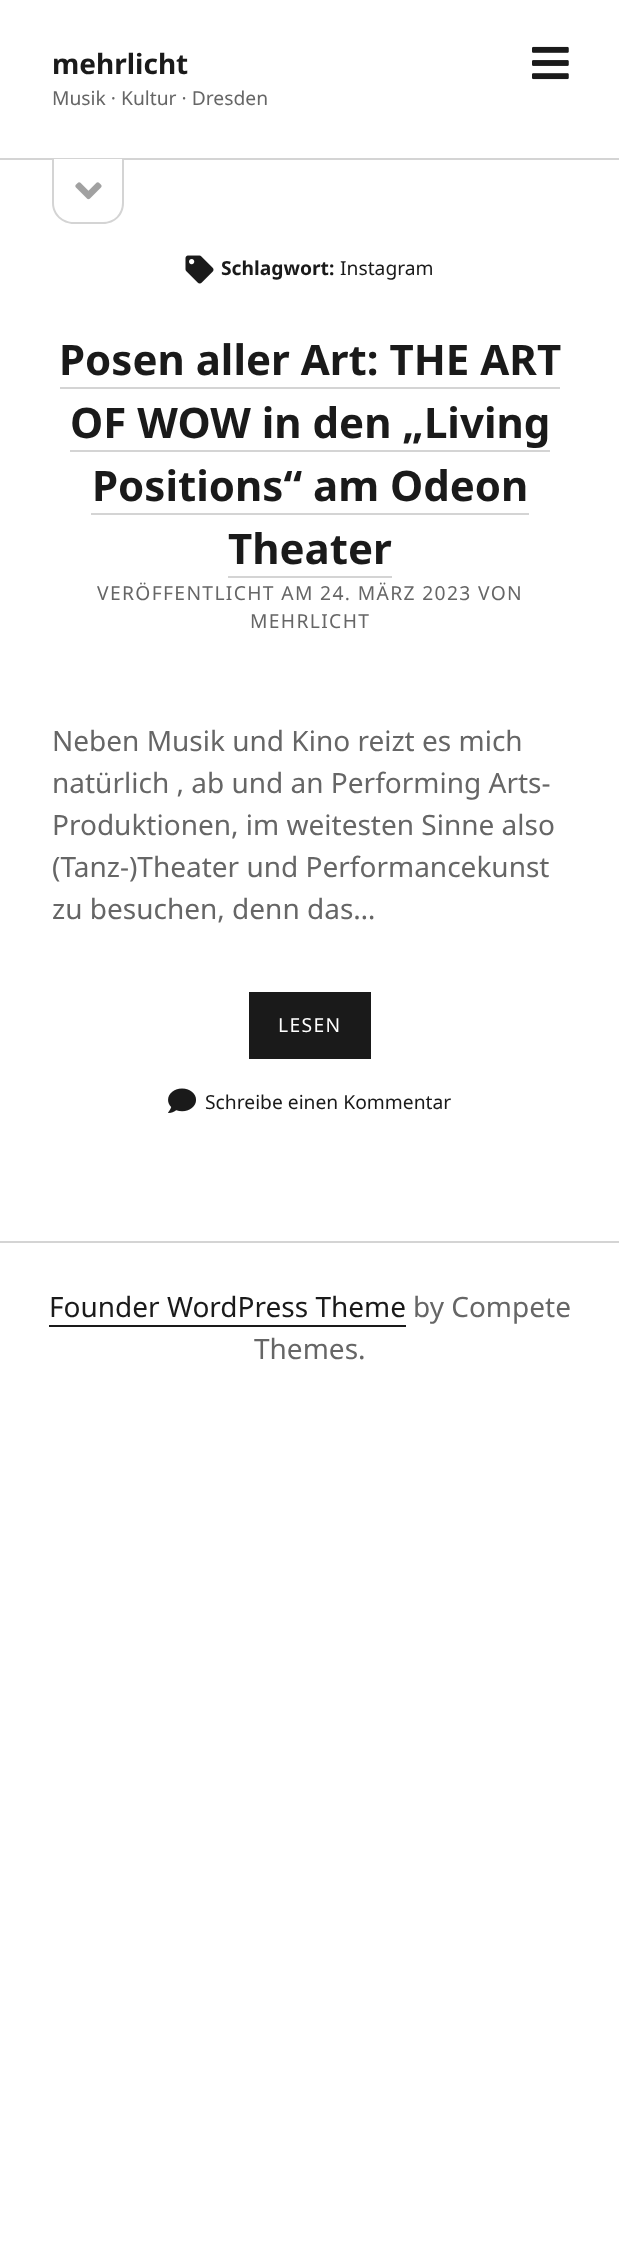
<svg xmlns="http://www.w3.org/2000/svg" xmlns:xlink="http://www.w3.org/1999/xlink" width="619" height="2262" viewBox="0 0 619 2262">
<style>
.cls-1{font:bold 28px Noto Sans;fill:#1a1a1a}
.cls-2{font:19.25px Noto Sans;fill:#666666}
.cls-3{font:bold 19.25px Noto Sans;fill:#1a1a1a}
.cls-4{font:19.25px Noto Sans;fill:#1a1a1a}
.cls-5{font:bold 42px Noto Sans;fill:#1a1a1a}
.cls-6{font:19.25px Noto Sans;letter-spacing:1.35px;fill:#666666}
.cls-7{font:28px Noto Sans;fill:#666666}
.cls-8{font:19.25px Noto Sans;letter-spacing:1.35px;fill:#ffffff}
.cls-9{font:28px Noto Sans;fill:#1a1a1a}
</style>
<rect width="100%" height="100%" fill="#ffffff"/>
<rect fill="#d4d4d4" x="0" y="158" width="619" height="2"/>
<image xlink:href="image0.png" x="532" y="46" width="37" height="34"/>
<path fill="#ffffff" d="M53 159H124V203C124 214.5 114.5 224 103 224H74C62.5 224 53 214.5 53 203Z"/>
<path fill="#d4d4d4" fill-rule="evenodd" d="M52 159H124V203C124 215 115 224 103 224H74C62 224 52 215 52 203ZM54 159H122V203C122 214 114 222 103 222H74C63 222 54 214 54 203Z"/>
<image xlink:href="image1.png" x="75" y="182" width="27" height="18"/>
<image xlink:href="image2.png" x="185" y="255" width="29" height="29"/>
<rect fill="#d4d4d4" x="60" y="387" width="500" height="2"/>
<rect fill="#d4d4d4" x="70" y="450" width="480" height="2"/>
<rect fill="#d4d4d4" x="91" y="513" width="438" height="2"/>
<rect fill="#d4d4d4" x="228" y="576" width="164" height="2"/>
<rect fill="#1a1a1a" x="249" y="992" width="122" height="67"/>
<image xlink:href="image3.png" x="168" y="1088" width="28" height="25"/>
<rect fill="#d4d4d4" x="0" y="1241" width="619" height="2"/>
<rect fill="#1a1a1a" x="49" y="1325" width="357" height="2"/>
<text class="cls-1" x="52" y="74">mehrlicht</text>
<text class="cls-2" x="52" y="105">Musik · Kultur · Dresden</text>
<text class="cls-3" x="221" y="275">Schlagwort:</text>
<text class="cls-4" x="340" y="275">Instagram</text>
<text class="cls-5" x="59" y="375">Posen aller Art: THE ART</text>
<text class="cls-5" x="70" y="438">OF WOW in den „Living</text>
<text class="cls-5" x="92" y="501">Positions“ am Odeon</text>
<text class="cls-5" x="228" y="564">Theater</text>
<text class="cls-6" x="97" y="600">VERÖFFENTLICHT AM 24. MÄRZ 2023 VON</text>
<text class="cls-6" x="250" y="628">MEHRLICHT</text>
<text class="cls-7"><tspan x="52" y="751">Neben Musik und Kino reizt es mich</tspan><tspan x="52" y="793">natürlich , ab und an Performing Arts-</tspan><tspan x="52" y="835">Produktionen, im weitesten Sinne also</tspan><tspan x="52" y="877">(Tanz-)Theater und Performancekunst</tspan><tspan x="52" y="919">zu besuchen, denn das…</tspan></text>
<text class="cls-8" x="278" y="1032">LESEN</text>
<text class="cls-4" x="205" y="1109">Schreibe einen Kommentar</text>
<text class="cls-9" x="49" y="1317">Founder WordPress Theme</text>
<text class="cls-7" x="413" y="1317">by Compete</text>
<text class="cls-7" x="254" y="1359">Themes.</text>
</svg>
